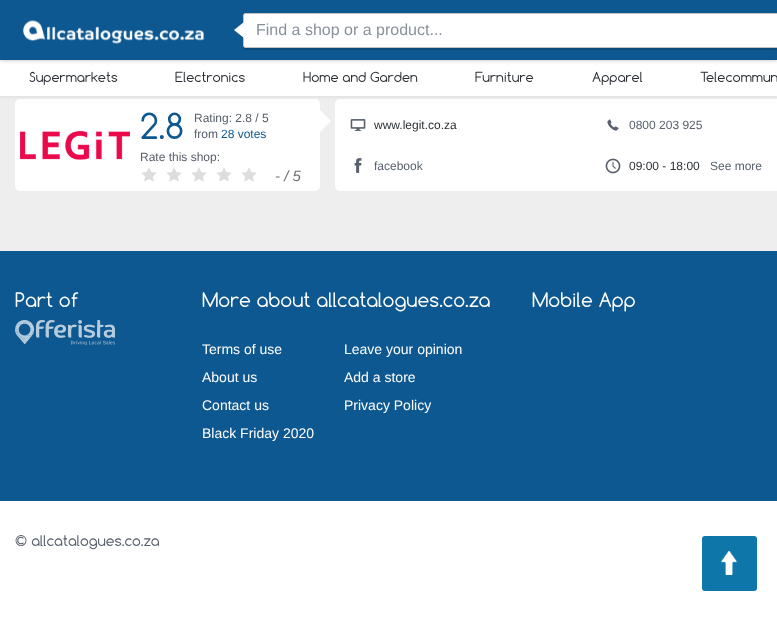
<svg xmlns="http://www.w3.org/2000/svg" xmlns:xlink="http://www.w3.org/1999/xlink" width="777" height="631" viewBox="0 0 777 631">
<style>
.cls-1{font:16px Liberation Sans;fill:#89919c}
.cls-2{font:13px Comfortaa;fill:#2b2f35}
.cls-3{font:34px Comfortaa;fill:#0e5891}
.cls-4{font:12px Liberation Sans;fill:#58606c}
.cls-5{font:12px Liberation Sans;fill:#0e5891}
.cls-6{font:italic 15px Liberation Sans;fill:#6d6d6d}
.cls-7{font:12px Liberation Sans;fill:#2b2f35}
.cls-8{font:19px Comfortaa;fill:#ffffff}
.cls-9{font:14px Liberation Sans;fill:#ffffff}
.cls-10{font:14px Comfortaa;fill:#58606c}
</style>
<defs>
<clipPath id="clip1"><path d="M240 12H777V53H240ZM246 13H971V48H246C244.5 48 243 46.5 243 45V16C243 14.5 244.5 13 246 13Z" clip-rule="evenodd"/></clipPath>
</defs>
<rect width="100%" height="100%" fill="#eeeeee"/>
<rect fill="#ffffff" x="15" y="99" width="305" height="92" rx="5"/>
<rect fill="#ffffff" x="335" y="99" width="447" height="92" rx="5"/>
<rect fill="#999999" fill-opacity="0.2" filter="blur(1.5px)" x="0" y="61" width="777" height="36"/>
<rect fill="#ffffff" x="0" y="60" width="777" height="36"/>
<rect fill="#000000" fill-opacity="0.28" filter="blur(2px)" x="0" y="0" width="777" height="60"/>
<rect fill="#0e5891" x="0" y="0" width="777" height="60"/>
<image xlink:href="image0.png" x="23" y="20" width="181" height="24"/>
<path fill="#ffffff" d="M246 13H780V48H246C244.5 48 243 46.5 243 45V16C243 14.5 244.5 13 246 13Z"/>
<g clip-path="url(#clip1)">
<rect fill="#000000" fill-opacity="0.17" filter="blur(0.5px)" x="243" y="15" width="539" height="35" rx="3"/>
</g>
<path fill="none" stroke="#c1c1c1" d="M246 13.5H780.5V47.5H246C244.5 47.5 243.5 46.5 243.5 45V16C243.5 14.5 244.5 13.5 246 13.5Z"/>
<path fill="#ffffff" d="M244 22V38L234 30Z"/>
<image xlink:href="image1.png" x="20" y="131" width="110" height="29"/>
<image xlink:href="image2.png" x="141" y="167" width="16" height="15"/>
<image xlink:href="image2.png" x="166" y="167" width="16" height="15"/>
<image xlink:href="image2.png" x="191" y="167" width="16" height="15"/>
<image xlink:href="image2.png" x="216" y="167" width="16" height="15"/>
<image xlink:href="image2.png" x="241" y="167" width="16" height="15"/>
<path fill="#ffffff" d="M319 133V109L331 121Z"/>
<image xlink:href="image3.png" x="350" y="119" width="16" height="12"/>
<image xlink:href="image4.png" x="607" y="119" width="12" height="12"/>
<image xlink:href="image5.png" x="354" y="158" width="8" height="15"/>
<image xlink:href="image6.png" x="605" y="158" width="16" height="16"/>
<rect fill="#ffffff" x="0" y="501" width="777" height="130"/>
<rect fill="#0e5891" x="0" y="251" width="777" height="250"/>
<image xlink:href="image7.png" x="15" y="320" width="100" height="25"/>
<rect fill="#0e76a8" x="702" y="536" width="55" height="55" rx="3"/>
<image xlink:href="image8.png" x="721" y="551" width="17" height="24"/>
<text class="cls-1" x="256" y="35">Find a shop or a product...</text>
<text class="cls-2" x="29" y="82">Supermarkets</text>
<text class="cls-2" x="175" y="82">Electronics</text>
<text class="cls-2" x="303" y="82">Home and Garden</text>
<text class="cls-2" x="475" y="82">Furniture</text>
<text class="cls-2" x="592" y="82">Apparel</text>
<text class="cls-2" x="700" y="82">Telecommun</text>
<text class="cls-3" x="140" y="139">2.8</text>
<text class="cls-4"><tspan x="194" y="122">Rating: 2.8 / 5</tspan><tspan x="194" y="138">from</tspan></text>
<text class="cls-5" x="221" y="138">28 votes</text>
<text class="cls-4" x="140" y="161">Rate this shop:</text>
<text class="cls-6" x="275" y="181">- / 5</text>
<text class="cls-7" x="374" y="129">www.legit.co.za</text>
<text class="cls-4" x="629" y="129">0800 203 925</text>
<text class="cls-4" x="374" y="170">facebook</text>
<text class="cls-7" x="629" y="170">09:00 - 18:00</text>
<text class="cls-4" x="710" y="170">See more</text>
<text class="cls-8" x="15" y="307">Part of</text>
<text class="cls-8" x="202" y="307">More about allcatalogues.co.za</text>
<text class="cls-9" x="202" y="354">Terms of use</text>
<text class="cls-9" x="202" y="382">About us</text>
<text class="cls-9" x="202" y="410">Contact us</text>
<text class="cls-9" x="202" y="438">Black Friday 2020</text>
<text class="cls-9" x="344" y="354">Leave your opinion</text>
<text class="cls-9" x="344" y="382">Add a store</text>
<text class="cls-9" x="344" y="410">Privacy Policy</text>
<text class="cls-8" x="532" y="307">Mobile App</text>
<text class="cls-10" x="15" y="546">© allcatalogues.co.za</text>
</svg>
